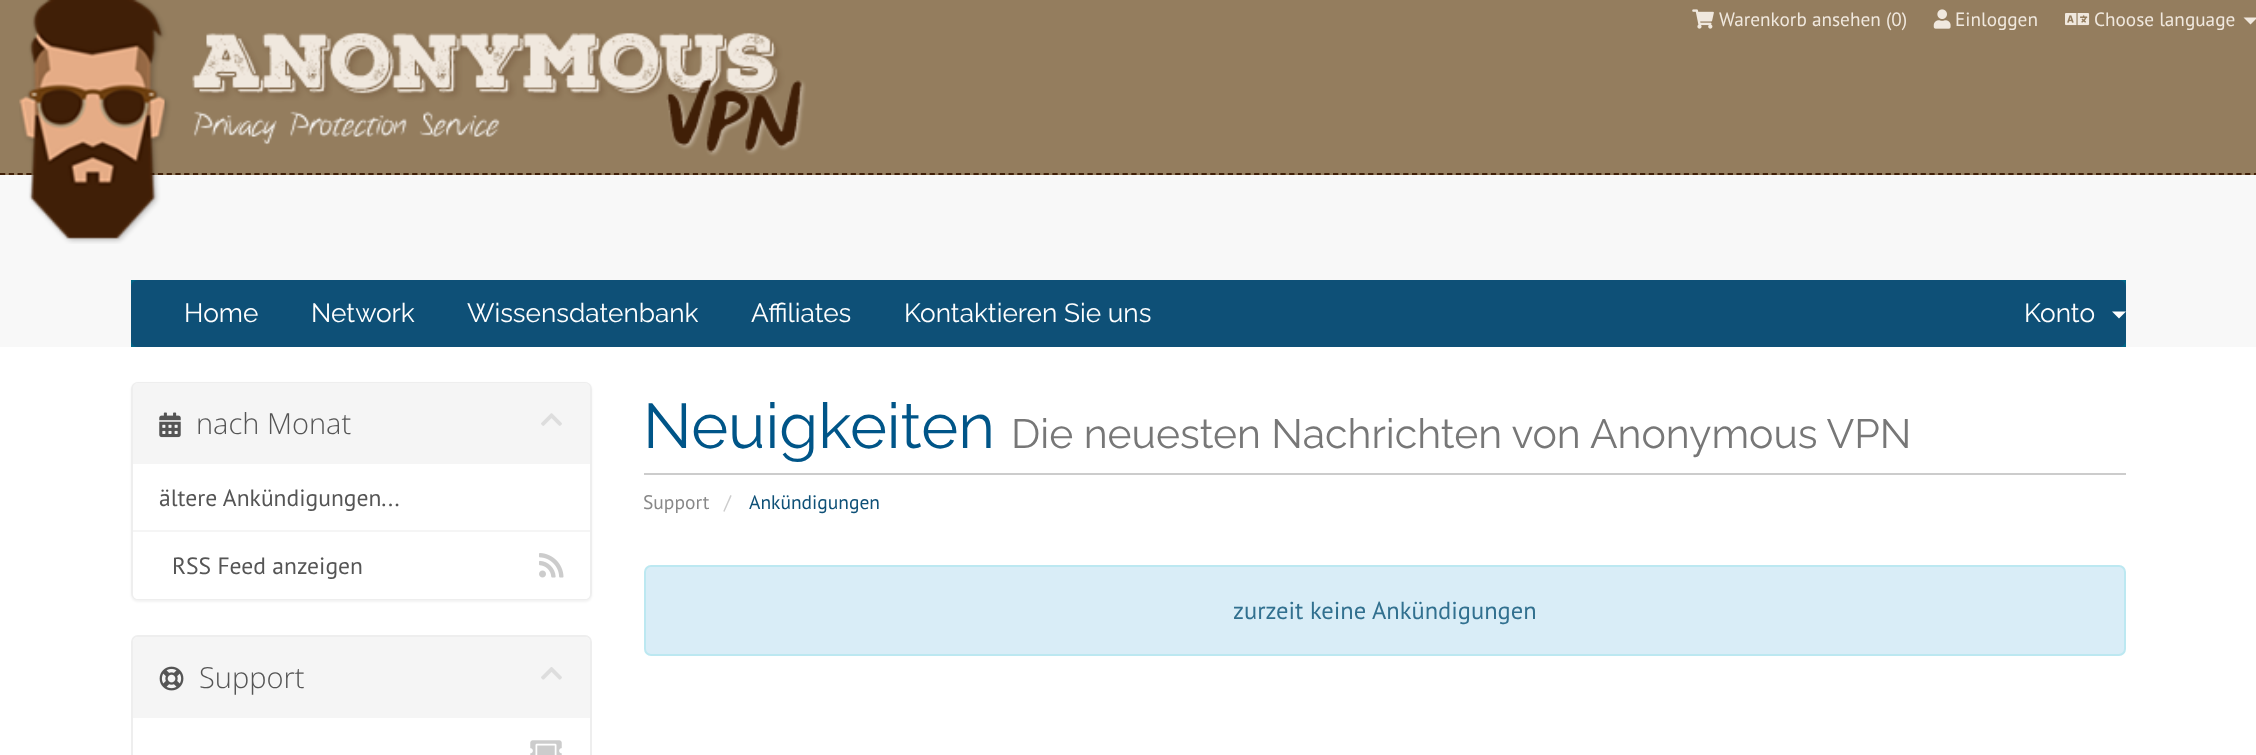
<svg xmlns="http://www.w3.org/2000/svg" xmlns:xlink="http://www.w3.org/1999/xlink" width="2256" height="755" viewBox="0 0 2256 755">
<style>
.cls-1{font:19.25px PT Sans;fill:#f0e8de}
.cls-2{font:26.25px Raleway;fill:#ffffff}
.cls-3{font:300 29px Open Sans;fill:#555555}
.cls-4{font:23.6px PT Sans;fill:#555555}
.cls-5{font:63px Raleway;fill:#005588}
.cls-6{font:40.95px Raleway;fill:#777777}
.cls-7{font:19.5px PT Sans;fill:#888888}
.cls-8{font:19.5px PT Sans;fill:#cccccc}
.cls-9{font:19.5px PT Sans;fill:#0e5077}
.cls-10{font:24.5px PT Sans;fill:#31708f}
</style>
<rect width="100%" height="100%" fill="#f8f8f8"/>
<rect fill="#947d5e" x="0" y="0" width="2256" height="175"/>
<path fill="none" stroke="#401f07" stroke-width="1.8" stroke-dasharray="5.25 3.52" d="M0 174H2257.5"/>
<image xlink:href="image0.png" x="19" y="0" width="787" height="244"/>
<image xlink:href="image1.png" x="1692" y="9" width="22" height="20"/>
<image xlink:href="image2.png" x="1933" y="9" width="18" height="20"/>
<image xlink:href="image3.png" x="2065" y="13" width="25" height="13"/>
<path fill="#f0e8de" d="M2243.5 17.5H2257.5L2250.5 24.5Z"/>
<rect fill="#006687" x="131" y="280" width="1995" height="67"/>
<rect fill="#0e5077" x="131" y="280" width="1995" height="67" rx="7"/>
<path fill="#ffffff" d="M2112 311.5H2126L2119 318.5Z"/>
<rect fill="#ffffff" x="0" y="347" width="2256" height="408"/>
<rect fill="#000000" fill-opacity="0.05" filter="blur(1px)" x="131" y="383" width="461" height="219" rx="7"/>
<rect fill="#ffffff" stroke="#eeeeee" stroke-width="2" x="132" y="383" width="459" height="216" rx="6"/>
<path fill="#f5f5f5" d="M138 383H585C588 383 590 385 590 388V464H133V388C133 385 135 383 138 383Z"/>
<image xlink:href="image4.png" x="159" y="412" width="22" height="26"/>
<image xlink:href="image5.png" x="541" y="413" width="21" height="13"/>
<path fill="#ffffff" d="M133 530H590V594C590 597 588 599 585 599H138C135 599 133 597 133 594Z"/>
<rect fill="#f5f5f5" x="133" y="530" width="457" height="2"/>
<image xlink:href="image6.png" x="539" y="553" width="25" height="25"/>
<rect fill="#cccccc" x="644" y="473" width="1482" height="2"/>
<rect fill="#d9edf7" stroke="#bce8f1" stroke-width="2" x="645" y="566" width="1480" height="89" rx="6"/>
<rect fill="none" stroke="#eeeeee" stroke-width="2" x="132" y="636" width="459" height="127" rx="6"/>
<path fill="#f5f5f5" d="M138 637H585C588 637 590 639 590 642V718H133V642C133 639 135 637 138 637Z"/>
<image xlink:href="image7.png" x="159" y="666" width="25" height="25"/>
<image xlink:href="image8.png" x="541" y="667" width="21" height="13"/>
<image xlink:href="image9.png" x="530" y="740" width="32" height="15"/>
<text class="cls-1" x="1719" y="26">Warenkorb ansehen (0)</text>
<text class="cls-1" x="1955" y="26">Einloggen</text>
<text class="cls-1" x="2094" y="26">Choose language</text>
<text class="cls-2" x="184" y="322">Home</text>
<text class="cls-2" x="311" y="322">Network</text>
<text class="cls-2" x="467" y="322">Wissensdatenbank</text>
<text class="cls-2" x="751" y="322">Affiliates</text>
<text class="cls-2" x="904" y="322">Kontaktieren Sie uns</text>
<text class="cls-2" x="2024" y="322">Konto</text>
<text class="cls-3" x="196" y="434">nach Monat</text>
<text class="cls-4" x="159" y="506">ältere Ankündigungen...</text>
<text class="cls-4" x="172" y="574">RSS Feed anzeigen</text>
<text class="cls-5" x="643" y="448">Neuigkeiten</text>
<text class="cls-6" x="1011" y="448">Die neuesten Nachrichten von Anonymous VPN</text>
<text class="cls-7" x="643" y="509">Support</text>
<text class="cls-8" x="724" y="509">/</text>
<text class="cls-9" x="749" y="509">Ankündigungen</text>
<text class="cls-10" x="1233" y="619">zurzeit keine Ankündigungen</text>
<text class="cls-3" x="199" y="688">Support</text>
</svg>
